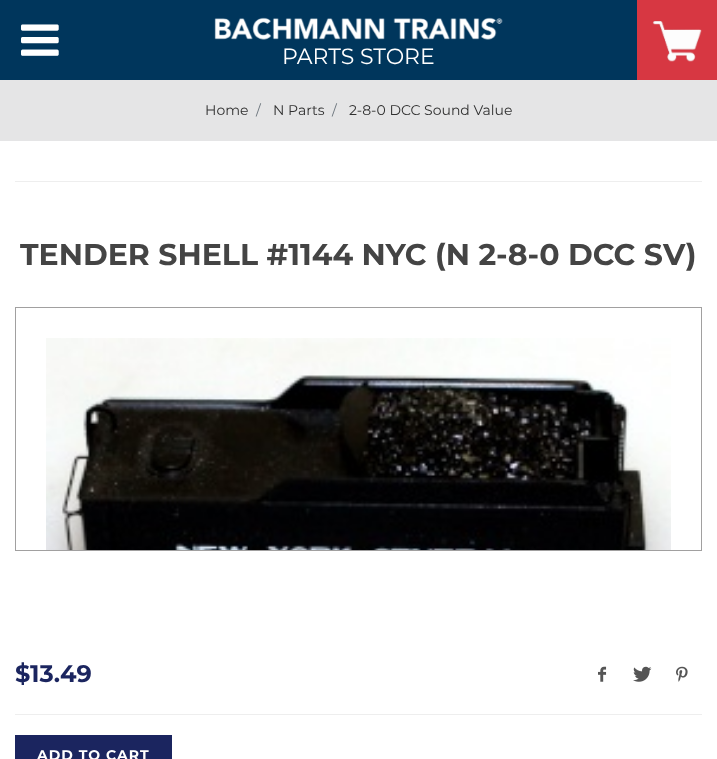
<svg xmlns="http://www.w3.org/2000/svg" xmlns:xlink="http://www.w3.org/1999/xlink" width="717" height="759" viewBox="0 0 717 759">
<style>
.cls-1{font:22px Montserrat;fill:#ffffff}
.cls-2{font:14px Montserrat;fill:#303030}
.cls-3{font:14px Montserrat;fill:#6c757d}
.cls-4{font:bold 30px Montserrat;fill:#444444}
.cls-5{font:bold 24px Montserrat;fill:#1b255f}
.cls-6{font:bold 14px Montserrat;letter-spacing:1px;fill:#ffffff}
</style>
<rect width="100%" height="100%" fill="#ffffff"/>
<rect fill="#00365c" x="0" y="0" width="637" height="80"/>
<image xlink:href="image0.png" x="21" y="24" width="38" height="32"/>
<image xlink:href="image1.png" x="214" y="17" width="289" height="23"/>
<rect fill="#d73742" x="637" y="0" width="80" height="80"/>
<image xlink:href="image2.png" x="652" y="21" width="50" height="41"/>
<rect fill="#e5e5e6" x="0" y="80" width="717" height="61"/>
<rect fill="#eeeeee" x="15" y="181" width="687" height="1"/>
<rect fill="none" stroke="#a1a0a0" x="15.5" y="307.5" width="686" height="243"/>
<image xlink:href="image3.png" x="46" y="338" width="625" height="212"/>
<image xlink:href="image4.png" x="598" y="666" width="9" height="16"/>
<image xlink:href="image5.png" x="633" y="666" width="19" height="16"/>
<image xlink:href="image6.png" x="676" y="666" width="12" height="16"/>
<rect fill="#eeeeee" x="15" y="714" width="687" height="1"/>
<rect fill="#1b255f" x="15" y="735" width="157" height="24"/>
<text class="cls-1" x="282" y="64">PARTS STORE</text>
<text class="cls-2" x="205" y="115">Home</text>
<text class="cls-3" x="256" y="115">/</text>
<text class="cls-2" x="273" y="115">N Parts</text>
<text class="cls-3" x="332" y="115">/</text>
<text class="cls-2" x="349" y="115">2-8-0 DCC Sound Value</text>
<text class="cls-4" x="20" y="265">TENDER SHELL #1144 NYC (N 2-8-0 DCC SV)</text>
<text class="cls-5" x="15" y="682">$13.49</text>
<text class="cls-6" x="37" y="760">ADD TO CART</text>
</svg>
